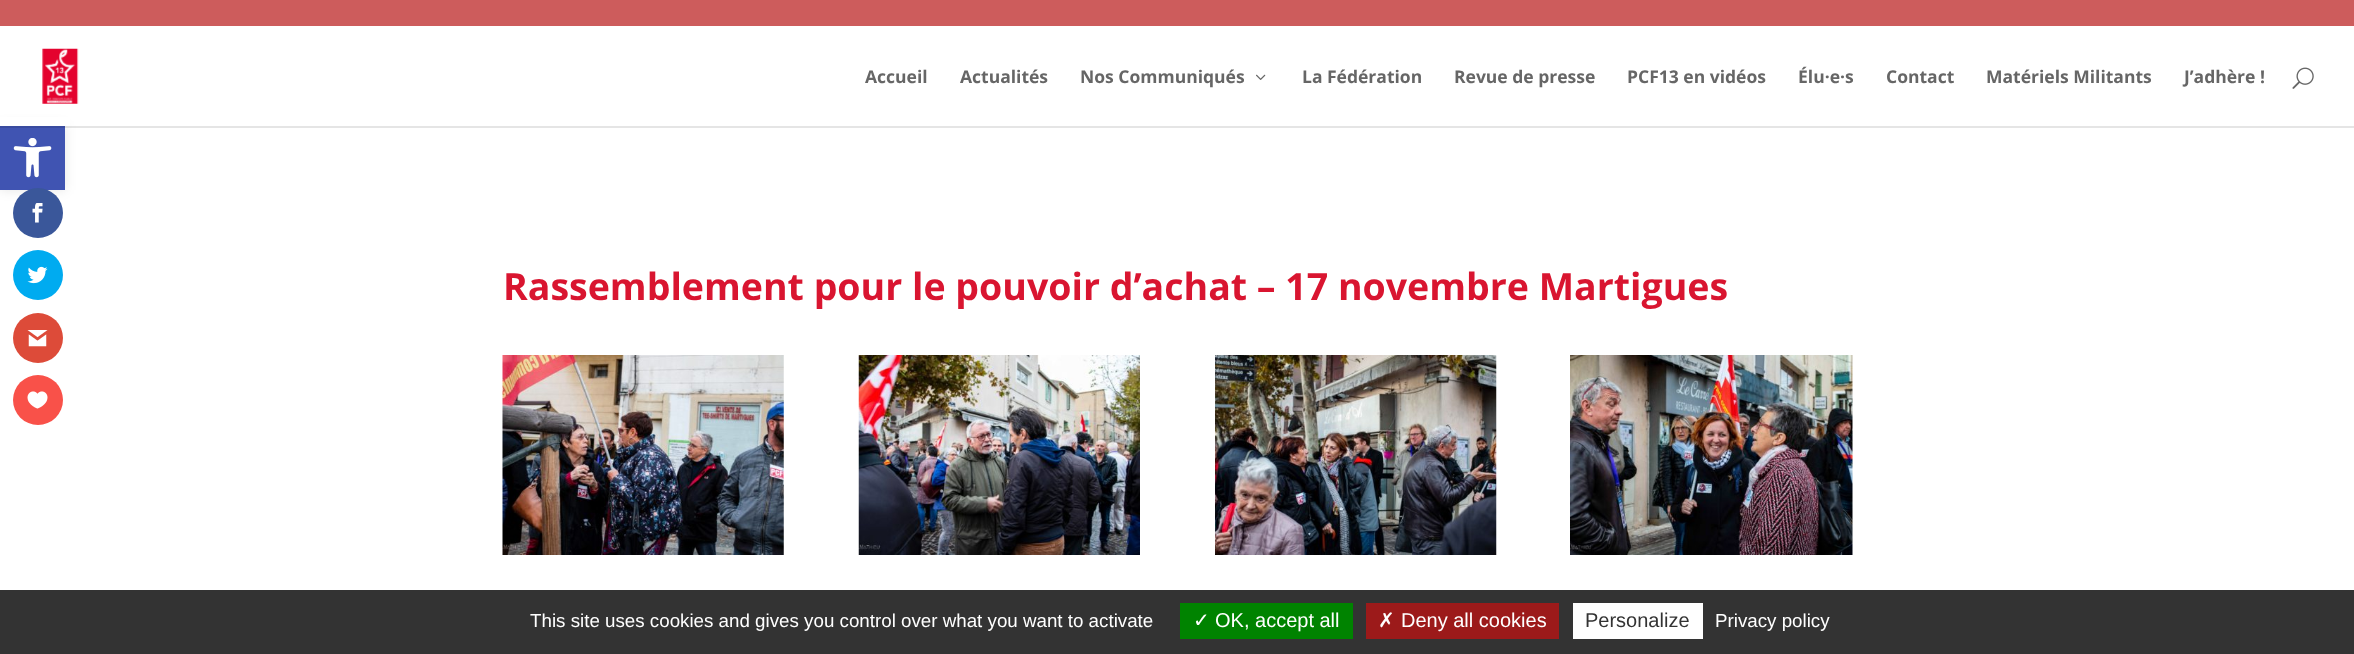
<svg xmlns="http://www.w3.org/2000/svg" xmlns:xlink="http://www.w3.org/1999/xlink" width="2354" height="654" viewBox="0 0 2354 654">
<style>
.cls-1{font:bold 17.5px Open Sans;fill:#666666}
.cls-2{font:bold 37.5px Open Sans;fill:#d91530}
.cls-3{font:18.75px Liberation Sans;fill:#ffffff}
.cls-4{font:20px DejaVu Sans;fill:#ffffff}
.cls-5{font:20px Liberation Sans;fill:#ffffff}
.cls-6{font:20px Liberation Sans;fill:#333333}
</style>
<rect width="100%" height="100%" fill="#ffffff"/>
<rect fill="#000000" fill-opacity="0.1" filter="blur(6px)" x="0" y="125" width="65" height="65"/>
<rect fill="#4054b2" x="0" y="126" width="65" height="64"/>
<image xlink:href="image0.png" x="13" y="138" width="39" height="40"/>
<rect fill="#cd5c5c" x="0" y="0" width="2354" height="26"/>
<rect fill="#000000" fill-opacity="0.1" x="0" y="126" width="2354" height="2"/>
<rect fill="#ffffff" x="0" y="117" width="70" height="9"/>
<image xlink:href="image1.png" x="42" y="48" width="37" height="56"/>
<image xlink:href="image2.png" x="1256" y="74" width="10" height="6"/>
<image xlink:href="image3.png" x="2292" y="67" width="22" height="22"/>
<image xlink:href="image4.png" x="502" y="355" width="282" height="200"/>
<image xlink:href="image5.png" x="858" y="355" width="282" height="200"/>
<image xlink:href="image6.png" x="1215" y="355" width="282" height="200"/>
<image xlink:href="image7.png" x="1570" y="355" width="283" height="200"/>
<circle fill="#3a579a" cx="38" cy="213" r="25"/>
<image xlink:href="image8.png" x="32" y="203" width="11" height="20"/>
<circle fill="#00abf0" cx="38" cy="275" r="25"/>
<image xlink:href="image9.png" x="27" y="266" width="21" height="18"/>
<circle fill="#dd4b39" cx="38" cy="338" r="25"/>
<image xlink:href="image10.png" x="27" y="330" width="21" height="17"/>
<circle fill="#f95149" cx="38" cy="400" r="25"/>
<image xlink:href="image11.png" x="27" y="391" width="21" height="18"/>
<rect fill="#333333" x="0" y="590" width="2354" height="64"/>
<rect fill="#008300" x="1180" y="603" width="173" height="36"/>
<rect fill="#9c1a1a" x="1366" y="603" width="193" height="36"/>
<rect fill="#ffffff" x="1573" y="603" width="130" height="36"/>
<text class="cls-1" x="865" y="83">Accueil</text>
<text class="cls-1" x="960" y="83">Actualités</text>
<text class="cls-1" x="1080" y="83">Nos Communiqués</text>
<text class="cls-1" x="1302" y="83">La Fédération</text>
<text class="cls-1" x="1454" y="83">Revue de presse</text>
<text class="cls-1" x="1627" y="83">PCF13 en vidéos</text>
<text class="cls-1" x="1798" y="83">Élu·e·s</text>
<text class="cls-1" x="1886" y="83">Contact</text>
<text class="cls-1" x="1986" y="83">Matériels Militants</text>
<text class="cls-1" x="2184" y="83">J’adhère !</text>
<text class="cls-2" x="503" y="300">Rassemblement pour le pouvoir d’achat – 17 novembre Martigues</text>
<text class="cls-3" x="530" y="627">This site uses cookies and gives you control over what you want to activate</text>
<text class="cls-4" x="1193" y="627">✓</text>
<text class="cls-5" x="1215" y="627">OK, accept all</text>
<text class="cls-4" x="1378" y="627">✗</text>
<text class="cls-5" x="1401" y="627">Deny all cookies</text>
<text class="cls-6" x="1585" y="627">Personalize</text>
<text class="cls-3" x="1715" y="627">Privacy policy</text>
</svg>
